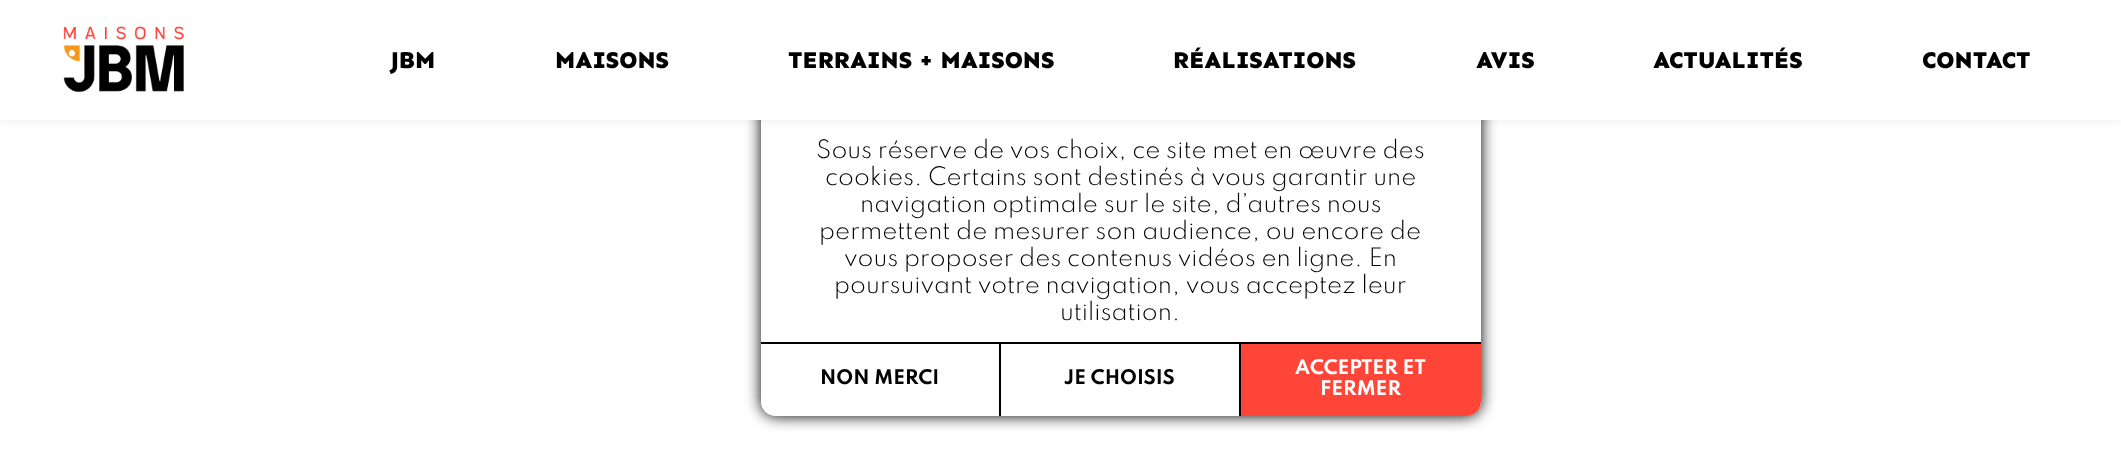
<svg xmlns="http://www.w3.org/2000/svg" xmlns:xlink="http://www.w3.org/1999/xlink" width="2121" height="460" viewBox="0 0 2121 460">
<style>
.cls-1{font:800 24px Sen;fill:#000000}
.cls-2{font:300 22.5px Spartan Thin;fill:#000000}
.cls-3{font:bold 18px Spartan Thin;fill:#000000}
.cls-4{font:bold 18px Spartan Thin;fill:#ffffff}
</style>
<rect width="100%" height="100%" fill="#ffffff"/>
<rect fill="#000000" filter="blur(7.5px)" x="761" y="59" width="720" height="357" rx="15"/>
<rect fill="#ffffff" x="761" y="59" width="720" height="357" rx="15"/>
<rect fill="#323232" fill-opacity="0.1" filter="blur(4px)" x="0" y="0" width="2121" height="120"/>
<rect fill="#ffffff" x="0" y="0" width="2121" height="120"/>
<image xlink:href="image0.png" x="63" y="26" width="121" height="67"/>
<rect fill="#000000" x="761" y="342" width="720" height="2"/>
<path fill="#ffffff" d="M761 344H1001V416H776C767.5 416 761 409.5 761 401Z"/>
<rect fill="#000000" x="999" y="344" width="2" height="72"/>
<rect fill="#000000" x="1239" y="344" width="2" height="72"/>
<path fill="#ff4438" d="M1241 344H1481V401C1481 409.5 1474.5 416 1466 416H1241Z"/>
<text class="cls-1" x="390" y="68">JBM</text>
<text class="cls-1" x="555" y="68">MAISONS</text>
<text class="cls-1" x="788" y="68">TERRAINS + MAISONS</text>
<text class="cls-1" x="1173" y="68">RÉALISATIONS</text>
<text class="cls-1" x="1476" y="68">AVIS</text>
<text class="cls-1" x="1653" y="68">ACTUALITÉS</text>
<text class="cls-1" x="1922" y="68">CONTACT</text>
<text class="cls-2" x="816" y="158">Sous réserve de vos choix, ce site met en œuvre des</text>
<text class="cls-2" x="825" y="185">cookies. Certains sont destinés à vous garantir une</text>
<text class="cls-2" x="860" y="212">navigation optimale sur le site, d’autres nous</text>
<text class="cls-2" x="819" y="239">permettent de mesurer son audience, ou encore de</text>
<text class="cls-2" x="844" y="266">vous proposer des contenus vidéos en ligne. En</text>
<text class="cls-2" x="834" y="293">poursuivant votre navigation, vous acceptez leur</text>
<text class="cls-2" x="1060" y="320">utilisation.</text>
<text class="cls-3" x="820" y="384">NON MERCI</text>
<text class="cls-3" x="1064" y="384">JE CHOISIS</text>
<text class="cls-4" x="1295" y="374">ACCEPTER ET</text>
<text class="cls-4" x="1320" y="395">FERMER</text>
</svg>
